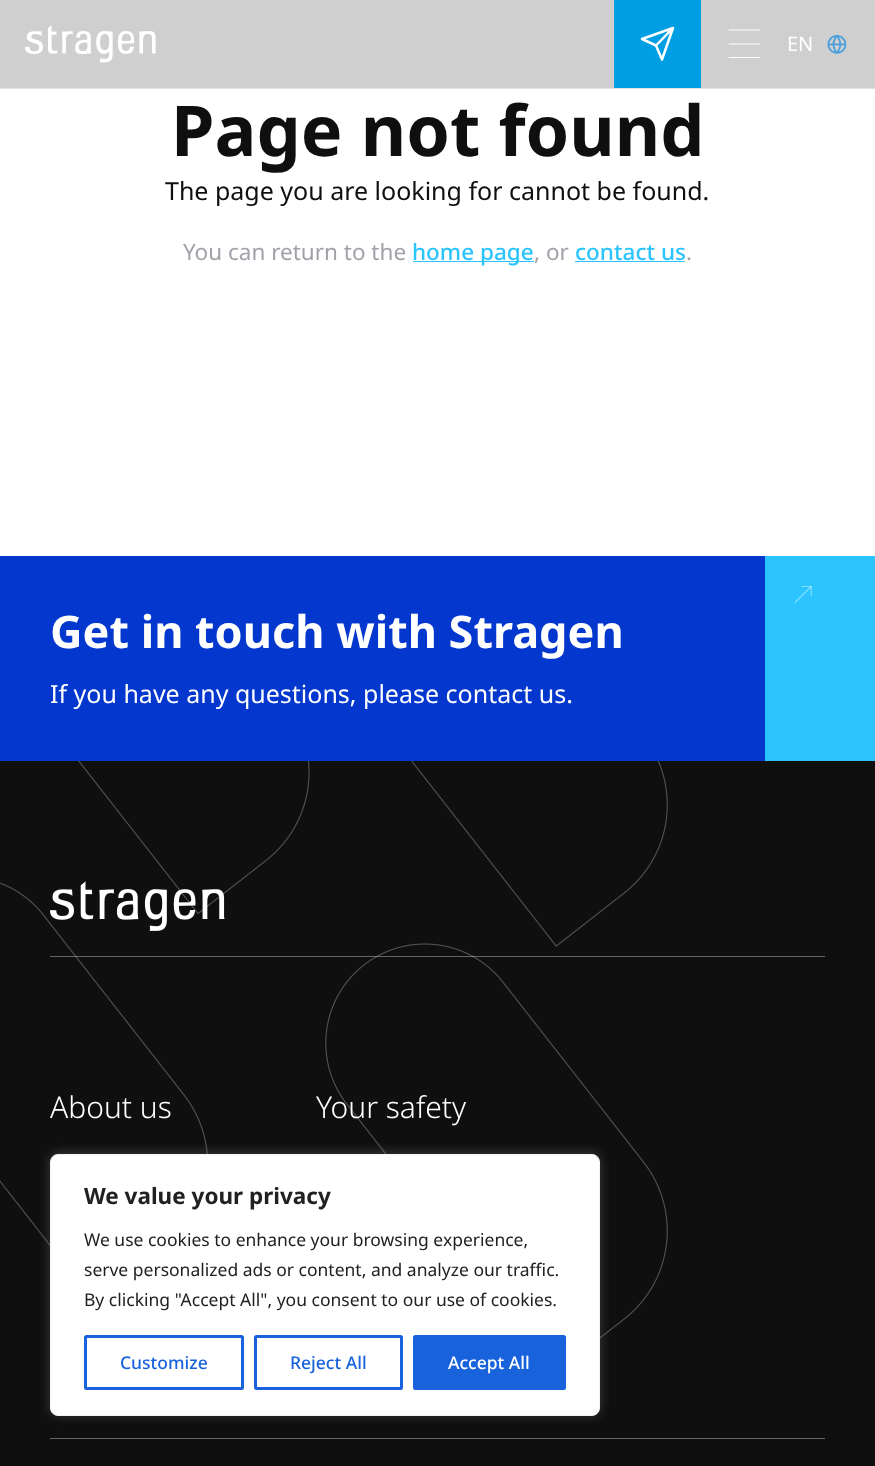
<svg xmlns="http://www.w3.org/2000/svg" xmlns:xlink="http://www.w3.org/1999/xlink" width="875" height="1466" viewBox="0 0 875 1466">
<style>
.cls-1{font:20px Noto Sans;fill:#ffffff}
.cls-2{font:bold 70px Noto Sans;fill:#0f0f0f}
.cls-3{font:25px Noto Sans;fill:#0f0f0f}
.cls-4{font:22.5px Noto Sans;fill:#a1a1aa}
.cls-5{font:500 22.5px Noto Sans;fill:#2cc4ff}
.cls-6{font:bold 45px Noto Sans;fill:#ffffff}
.cls-7{font:25px Noto Sans;fill:#ffffff}
.cls-8{font:300 30px Noto Sans;fill:#ffffff}
.cls-9{font:bold 22.5px Noto Sans;fill:#212121}
.cls-10{font:17.5px Noto Sans;fill:#212121}
.cls-11{font:500 17.5px Noto Sans;fill:#1863dc}
.cls-12{font:500 17.5px Noto Sans;fill:#ffffff}
</style>
<rect width="100%" height="100%" fill="#ffffff"/>
<rect fill="#cfcfcf" x="0" y="0" width="875" height="88"/>
<rect fill="#e0e0e0" x="0" y="88" width="875" height="1"/>
<image xlink:href="image0.png" x="25" y="25" width="131" height="38"/>
<rect fill="#009fe3" x="614" y="0" width="87" height="88"/>
<path fill="none" stroke="#ffffff" stroke-width="2.5" stroke-linecap="round" stroke-linejoin="round" d="M673 28L656 45.5M673 28L662 59.5L656 45.5L642 39Z"/>
<path fill="none" stroke="#ffffff" stroke-width="1.2" stroke-linecap="round" stroke-linejoin="round" d="M760 30H729M760 44H729M760 57.5H729"/>
<image xlink:href="image1.png" x="827" y="35" width="20" height="19"/>
<rect fill="#2cc4ff" x="413" y="261" width="121" height="1"/>
<rect fill="#2cc4ff" x="575" y="261" width="110" height="1"/>
<rect fill="#0337ce" x="0" y="556" width="765" height="205"/>
<rect fill="#2cc4ff" x="765" y="556" width="110" height="205"/>
<image xlink:href="image2.png" x="794" y="586" width="18" height="17"/>
<rect fill="#0f0f0f" x="0" y="761" width="875" height="705"/>
<image xlink:href="image3.png" x="0" y="761" width="668" height="578"/>
<image xlink:href="image4.png" x="50" y="881" width="175" height="50"/>
<rect fill="#e5e7eb" fill-opacity="0.4" x="50" y="956" width="775" height="1"/>
<rect fill="#656567" x="50" y="1438" width="775" height="1"/>
<rect fill="#acabab" fill-opacity="0.3" filter="blur(6px)" x="50" y="1153" width="550" height="262" rx="8"/>
<rect fill="#ffffff" stroke="#f4f4f4" x="50.5" y="1154.5" width="549" height="261" rx="7.5"/>
<rect fill="none" stroke="#1863dc" stroke-width="3" x="85.5" y="1336.5" width="157" height="52" rx="1"/>
<rect fill="none" stroke="#1863dc" stroke-width="3" x="255.5" y="1336.5" width="146" height="52" rx="1"/>
<rect fill="#1863dc" stroke="#1863dc" stroke-width="3" x="414.5" y="1336.5" width="150" height="52" rx="1"/>
<text class="cls-1" x="787" y="51">EN</text>
<text class="cls-2" x="171" y="156">Page not found</text>
<text class="cls-3" x="165" y="200">The page you are looking for cannot be found.</text>
<text class="cls-4" x="183" y="260">You can return to the</text>
<text class="cls-5" x="412" y="260">home page</text>
<text class="cls-4" x="534" y="260">, or</text>
<text class="cls-5" x="575" y="260">contact us</text>
<text class="cls-4" x="686" y="260">.</text>
<text class="cls-6" x="50" y="648">Get in touch with Stragen</text>
<text class="cls-7" x="50" y="703">If you have any questions, please contact us.</text>
<text class="cls-8" x="50" y="1118">About us</text>
<text class="cls-8" x="316" y="1118">Your safety</text>
<text class="cls-9" x="84" y="1204">We value your privacy</text>
<text class="cls-10"><tspan x="84" y="1246">We use cookies to enhance your browsing experience,</tspan><tspan x="84" y="1276">serve personalized ads or content, and analyze our traffic.</tspan><tspan x="84" y="1306">By clicking "Accept All", you consent to our use of cookies.</tspan></text>
<text class="cls-11" x="120" y="1369">Customize</text>
<text class="cls-11" x="290" y="1369">Reject All</text>
<text class="cls-12" x="448" y="1369">Accept All</text>
</svg>
